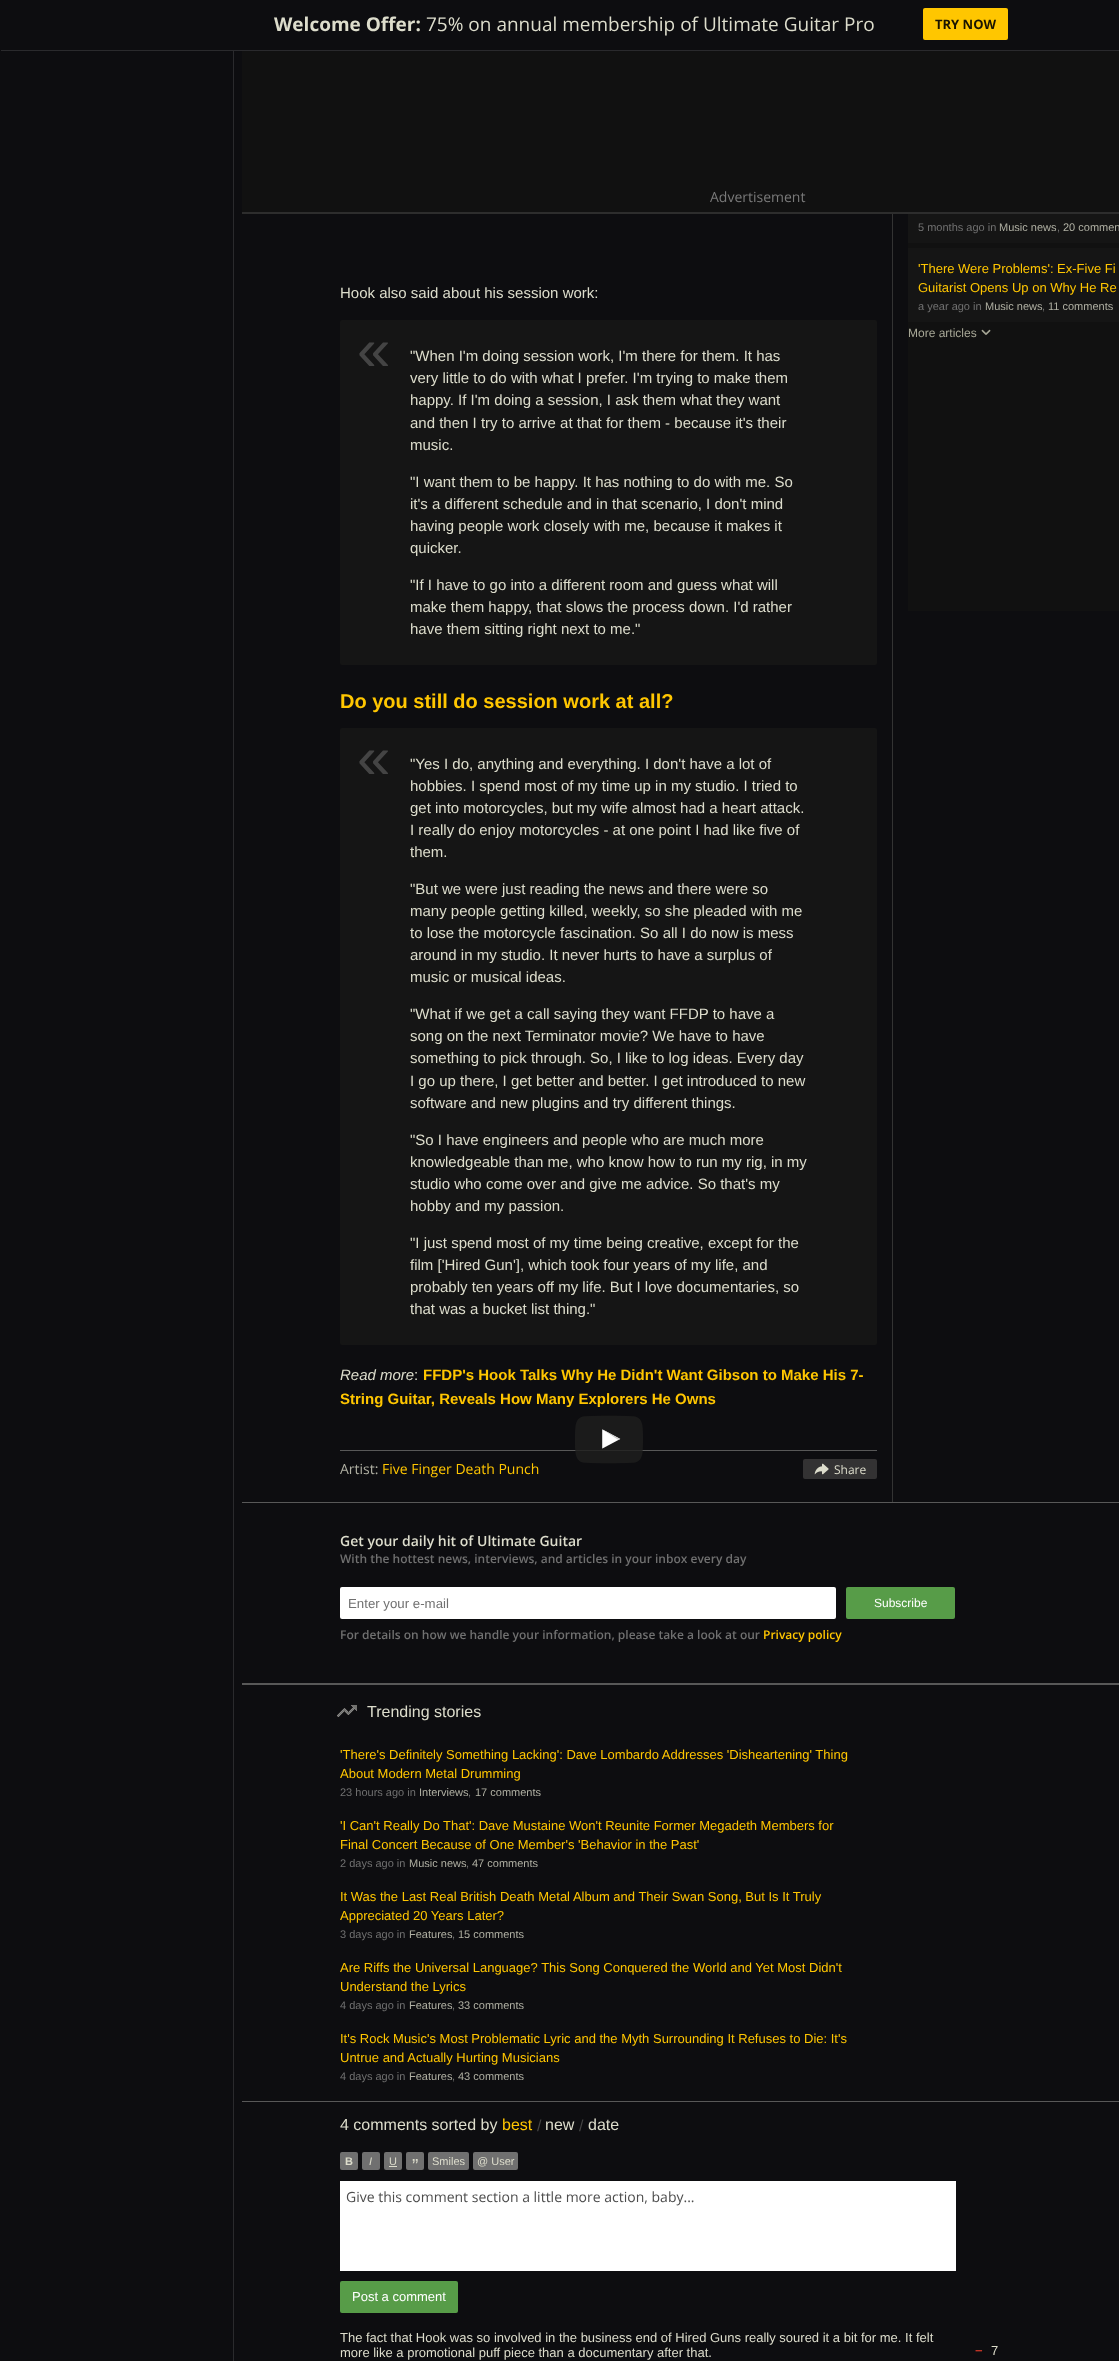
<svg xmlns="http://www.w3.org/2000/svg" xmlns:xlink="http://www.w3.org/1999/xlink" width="1119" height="2361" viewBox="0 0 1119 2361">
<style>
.cls-1{font:bold 19px Open Sans;fill:#ddddcc}
.cls-2{font:19px Open Sans;fill:#ddddcc}
.cls-3{font:bold 13px Open Sans;fill:#1a1400}
.cls-4{font:14px Open Sans;fill:#7a7a7a}
.cls-5{font:15px Liberation Sans;fill:#ddddcc}
.cls-6{font:60px Liberation Sans;fill:#444444}
.cls-7{font:bold 20px Liberation Sans;fill:#ffc600}
.cls-8{font:italic 15px Liberation Sans;fill:#ddddcc}
.cls-9{font:bold 15px Liberation Sans;fill:#ffc600}
.cls-10{font:14px Open Sans;fill:#b0b0a3}
.cls-11{font:14px Open Sans;fill:#ffc600}
.cls-12{font:12px Open Sans;fill:#ddddcc}
.cls-13{font:11px Liberation Sans;fill:#707070}
.cls-14{font:11px Liberation Sans;fill:#b0b0a3}
.cls-15{font:13px Liberation Sans;fill:#ffc600}
.cls-16{font:12px Liberation Sans;fill:#a7a796}
.cls-17{font:600 14px Open Sans;fill:#ddddcc}
.cls-18{font:600 12px Open Sans;fill:#707070}
.cls-19{font:13.25px Liberation Sans;fill:#707070}
.cls-20{font:12px Liberation Sans;fill:#ffffff}
.cls-21{font:600 12px Open Sans;fill:#ffc600}
.cls-22{font:16px Liberation Sans;fill:#ddddcc}
.cls-23{font:16px Liberation Sans;fill:#ffc600}
.cls-24{font:16px Liberation Sans;fill:#444444}
.cls-25{font:bold 11px Liberation Sans;fill:#ddddcc}
.cls-26{font:italic 11px Liberation Sans;fill:#ddddcc}
.cls-27{font:11px Liberation Sans;fill:#ddddcc}
.cls-28{font:19px Liberation Sans;fill:#ddddcc}
.cls-29{font:14px Open Sans;fill:#4d4d4d}
.cls-30{font:13px Liberation Sans;fill:#ffffff}
.cls-31{font:13px Liberation Sans;fill:#ddddcc}
.cls-32{font:bold 13px Liberation Sans;fill:#bf3325}
</style>
<rect width="100%" height="100%" fill="#0d0d10"/>
<rect fill="#2a2a2d" x="1" y="50" width="1118" height="1"/>
<rect fill="#ffc600" x="923" y="8" width="85" height="32" rx="2"/>
<rect fill="#2a2a2d" x="233" y="51" width="1" height="2310"/>
<rect fill="#111111" x="242" y="51" width="877" height="161"/>
<rect fill="#2d2d2d" x="242" y="212" width="877" height="2"/>
<rect fill="#151515" x="340" y="320" width="537" height="345" rx="2"/>
<rect fill="#151515" x="340" y="728" width="537" height="617" rx="2"/>
<rect fill="#585858" x="340" y="1450" width="537" height="1"/>
<image xlink:href="image0.png" x="575" y="1415" width="68" height="49"/>
<rect fill="#333233" x="803" y="1459" width="74" height="20" rx="2"/>
<image xlink:href="image1.png" x="814" y="1463" width="15" height="12"/>
<rect fill="#333333" x="892" y="214" width="1" height="1288"/>
<rect fill="#111111" x="908" y="322" width="211" height="289"/>
<rect fill="#151515" x="908" y="214" width="211" height="29"/>
<rect fill="#151515" x="908" y="248" width="211" height="74"/>
<rect fill="#111111" x="908" y="243" width="211" height="5"/>
<image xlink:href="image2.png" x="981" y="329" width="10" height="6"/>
<rect fill="#585858" x="242" y="1502" width="877" height="1"/>
<rect fill="#585858" x="242" y="1683" width="877" height="2"/>
<rect fill="#ffffff" x="340" y="1587" width="496" height="32" rx="2"/>
<rect fill="#579c48" x="846" y="1587" width="109" height="32" rx="2"/>
<rect fill="#585858" x="242" y="2101" width="877" height="1"/>
<image xlink:href="image3.png" x="337" y="1705" width="20" height="12"/>
<rect fill="#707070" x="340" y="2152" width="18" height="18" rx="2"/>
<rect fill="#707070" x="362" y="2152" width="18" height="18" rx="2"/>
<rect fill="#707070" x="384" y="2152" width="18" height="18" rx="2"/>
<rect fill="#ddddcc" x="389" y="2166" width="8" height="1"/>
<rect fill="#707070" x="406" y="2152" width="18" height="18" rx="2"/>
<rect fill="#707070" x="428" y="2152" width="41" height="18" rx="2"/>
<rect fill="#707070" x="473" y="2152" width="45" height="18" rx="2"/>
<rect fill="#ffffff" x="340" y="2181" width="616" height="90"/>
<rect fill="#579c48" x="340" y="2281" width="118" height="32" rx="2"/>
<text class="cls-1" x="274" y="31">Welcome Offer:</text>
<text class="cls-2" x="426" y="31">75% on annual membership of Ultimate Guitar Pro</text>
<text class="cls-3" x="935" y="29">TRY NOW</text>
<text class="cls-4" x="710" y="202">Advertisement</text>
<text class="cls-5" x="340" y="298">Hook also said about his session work:</text>
<text class="cls-6" x="357" y="370">«</text>
<text class="cls-5"><tspan x="410" y="361">"When I'm doing session work, I'm there for them. It has</tspan><tspan x="410" y="383">very little to do with what I prefer. I'm trying to make them</tspan><tspan x="410" y="405">happy. If I'm doing a session, I ask them what they want</tspan><tspan x="410" y="428">and then I try to arrive at that for them - because it's their</tspan><tspan x="410" y="450">music.</tspan></text>
<text class="cls-5"><tspan x="410" y="487">"I want them to be happy. It has nothing to do with me. So</tspan><tspan x="410" y="509">it's a different schedule and in that scenario, I don't mind</tspan><tspan x="410" y="531">having people work closely with me, because it makes it</tspan><tspan x="410" y="553">quicker.</tspan></text>
<text class="cls-5"><tspan x="410" y="590">"If I have to go into a different room and guess what will</tspan><tspan x="410" y="612">make them happy, that slows the process down. I'd rather</tspan><tspan x="410" y="634">have them sitting right next to me."</tspan></text>
<text class="cls-7" x="340" y="708">Do you still do session work at all?</text>
<text class="cls-6" x="357" y="778">«</text>
<text class="cls-5"><tspan x="410" y="769">"Yes I do, anything and everything. I don't have a lot of</tspan><tspan x="410" y="791">hobbies. I spend most of my time up in my studio. I tried to</tspan><tspan x="410" y="813">get into motorcycles, but my wife almost had a heart attack.</tspan><tspan x="410" y="835">I really do enjoy motorcycles - at one point I had like five of</tspan><tspan x="410" y="857">them.</tspan></text>
<text class="cls-5"><tspan x="410" y="894">"But we were just reading the news and there were so</tspan><tspan x="410" y="916">many people getting killed, weekly, so she pleaded with me</tspan><tspan x="410" y="938">to lose the motorcycle fascination. So all I do now is mess</tspan><tspan x="410" y="960">around in my studio. It never hurts to have a surplus of</tspan><tspan x="410" y="982">music or musical ideas.</tspan></text>
<text class="cls-5"><tspan x="410" y="1019">"What if we get a call saying they want FFDP to have a</tspan><tspan x="410" y="1041">song on the next Terminator movie? We have to have</tspan><tspan x="410" y="1063">something to pick through. So, I like to log ideas. Every day</tspan><tspan x="410" y="1086">I go up there, I get better and better. I get introduced to new</tspan><tspan x="410" y="1108">software and new plugins and try different things.</tspan></text>
<text class="cls-5"><tspan x="410" y="1145">"So I have engineers and people who are much more</tspan><tspan x="410" y="1167">knowledgeable than me, who know how to run my rig, in my</tspan><tspan x="410" y="1189">studio who come over and give me advice. So that's my</tspan><tspan x="410" y="1211">hobby and my passion.</tspan></text>
<text class="cls-5"><tspan x="410" y="1248">"I just spend most of my time being creative, except for the</tspan><tspan x="410" y="1270">film ['Hired Gun'], which took four years of my life, and</tspan><tspan x="410" y="1292">probably ten years off my life. But I love documentaries, so</tspan><tspan x="410" y="1314">that was a bucket list thing."</tspan></text>
<text class="cls-8" x="340" y="1380">Read more</text>
<text class="cls-5" x="414" y="1380">:</text>
<text class="cls-9" x="423" y="1380">FFDP's Hook Talks Why He Didn't Want Gibson to Make His 7-</text>
<text class="cls-9" x="340" y="1404">String Guitar, Reveals How Many Explorers He Owns</text>
<text class="cls-10" x="340" y="1474">Artist:</text>
<text class="cls-11" x="382" y="1474">Five Finger Death Punch</text>
<text class="cls-12" x="834" y="1474">Share</text>
<text class="cls-13" x="918" y="231">5 months ago in</text>
<text class="cls-14" x="999" y="231">Music news</text>
<text class="cls-13" x="1057" y="231">,</text>
<text class="cls-14" x="1063" y="231">20 commen</text>
<text class="cls-15"><tspan x="918" y="273">'There Were Problems': Ex-Five Fi</tspan><tspan x="918" y="292">Guitarist Opens Up on Why He Re</tspan></text>
<text class="cls-13" x="918" y="310">a year ago in</text>
<text class="cls-14" x="985" y="310">Music news</text>
<text class="cls-13" x="1042" y="310">,</text>
<text class="cls-14" x="1048" y="310">11 comments</text>
<text class="cls-16" x="908" y="337">More articles</text>
<text class="cls-17" x="340" y="1546">Get your daily hit of Ultimate Guitar</text>
<text class="cls-18" x="340" y="1563">With the hottest news, interviews, and articles in your inbox every day</text>
<text class="cls-19" x="348" y="1608">Enter your e-mail</text>
<text class="cls-20" x="874" y="1607">Subscribe</text>
<text class="cls-18" x="340" y="1639">For details on how we handle your information, please take a look at our</text>
<text class="cls-21" x="763" y="1639">Privacy policy</text>
<text class="cls-22" x="367" y="1717">Trending stories</text>
<text class="cls-15"><tspan x="340" y="1759">'There's Definitely Something Lacking': Dave Lombardo Addresses 'Disheartening' Thing</tspan><tspan x="340" y="1778">About Modern Metal Drumming</tspan></text>
<text class="cls-13" x="340" y="1796">23 hours ago in</text>
<text class="cls-14" x="419" y="1796">Interviews</text>
<text class="cls-13" x="468" y="1796">,</text>
<text class="cls-14" x="475" y="1796">17 comments</text>
<text class="cls-15"><tspan x="340" y="1830">'I Can't Really Do That': Dave Mustaine Won't Reunite Former Megadeth Members for</tspan><tspan x="340" y="1849">Final Concert Because of One Member's 'Behavior in the Past'</tspan></text>
<text class="cls-13" x="340" y="1867">2 days ago in</text>
<text class="cls-14" x="409" y="1867">Music news</text>
<text class="cls-13" x="466" y="1867">,</text>
<text class="cls-14" x="472" y="1867">47 comments</text>
<text class="cls-15"><tspan x="340" y="1901">It Was the Last Real British Death Metal Album and Their Swan Song, But Is It Truly</tspan><tspan x="340" y="1920">Appreciated 20 Years Later?</tspan></text>
<text class="cls-13" x="340" y="1938">3 days ago in</text>
<text class="cls-14" x="409" y="1938">Features</text>
<text class="cls-13" x="452" y="1938">,</text>
<text class="cls-14" x="458" y="1938">15 comments</text>
<text class="cls-15"><tspan x="340" y="1972">Are Riffs the Universal Language? This Song Conquered the World and Yet Most Didn't</tspan><tspan x="340" y="1991">Understand the Lyrics</tspan></text>
<text class="cls-13" x="340" y="2009">4 days ago in</text>
<text class="cls-14" x="409" y="2009">Features</text>
<text class="cls-13" x="452" y="2009">,</text>
<text class="cls-14" x="458" y="2009">33 comments</text>
<text class="cls-15"><tspan x="340" y="2043">It's Rock Music's Most Problematic Lyric and the Myth Surrounding It Refuses to Die: It's</tspan><tspan x="340" y="2062">Untrue and Actually Hurting Musicians</tspan></text>
<text class="cls-13" x="340" y="2080">4 days ago in</text>
<text class="cls-14" x="409" y="2080">Features</text>
<text class="cls-13" x="452" y="2080">,</text>
<text class="cls-14" x="458" y="2080">43 comments</text>
<text class="cls-22" x="340" y="2130">4 comments sorted by</text>
<text class="cls-23" x="502" y="2130">best</text>
<text class="cls-24" x="537" y="2131">/</text>
<text class="cls-22" x="545" y="2130">new</text>
<text class="cls-24" x="579" y="2131">/</text>
<text class="cls-22" x="588" y="2130">date</text>
<text class="cls-25" x="345" y="2165">B</text>
<text class="cls-26" x="369" y="2165">I</text>
<text class="cls-27" x="389" y="2165">U</text>
<text class="cls-28" x="412" y="2172">”</text>
<text class="cls-27" x="432" y="2165">Smiles</text>
<text class="cls-27" x="477" y="2165">@ User</text>
<text class="cls-29" x="346" y="2202">Give this comment section a little more action, baby...</text>
<text class="cls-30" x="352" y="2301">Post a comment</text>
<text class="cls-31"><tspan x="340" y="2342">The fact that Hook was so involved in the business end of Hired Guns really soured it a bit for me. It felt</tspan><tspan x="340" y="2357">more like a promotional puff piece than a documentary after that.</tspan></text>
<text class="cls-32" x="975" y="2355">−</text>
<text class="cls-31" x="991" y="2355">7</text>
</svg>
